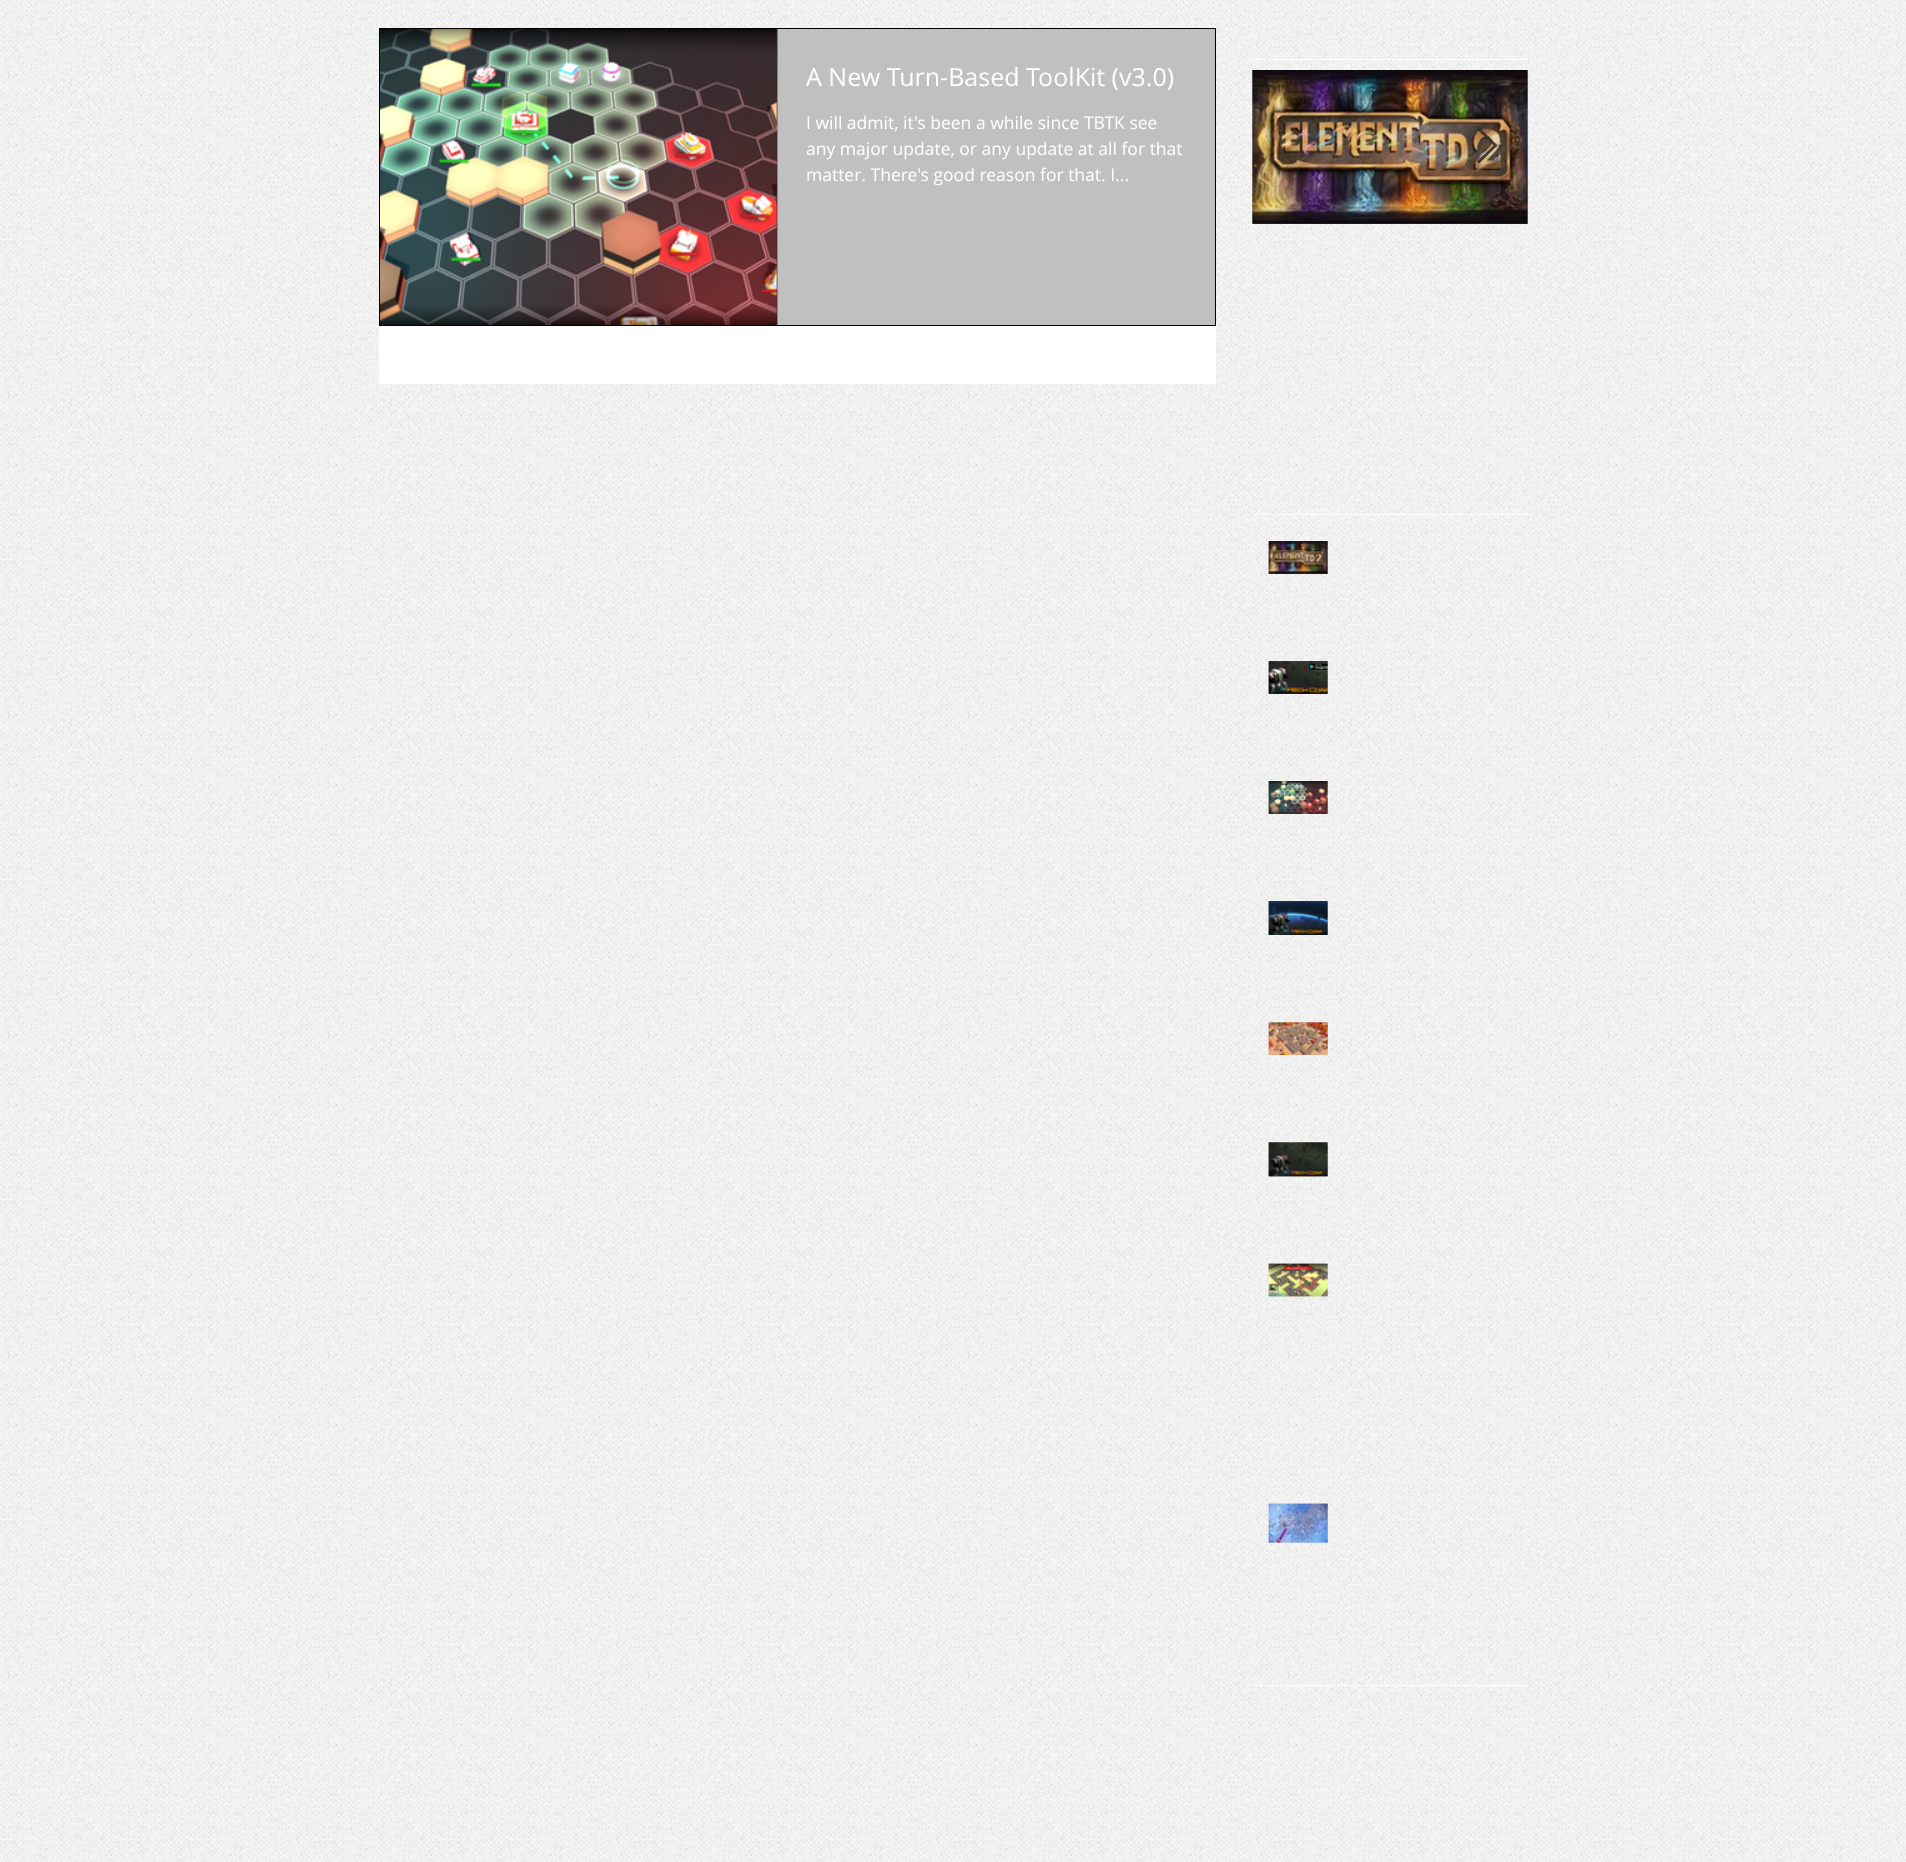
<svg xmlns="http://www.w3.org/2000/svg" xmlns:xlink="http://www.w3.org/1999/xlink" width="1906" height="1862" viewBox="0 0 1906 1862">
<style>
.cls-1{font:25px Open Sans;fill:#ffffff}
.cls-2{font:17.5px Open Sans;fill:#ffffff}
</style>
<rect width="100%" height="100%" fill="#f6f6f6"/>
<image xlink:href="image0.png" x="0" y="0" width="1906" height="1862"/>
<rect fill="#ffffff" x="1253" y="59" width="275" height="1"/>
<rect fill="#ffffff" x="379" y="29" width="837" height="355"/>
<rect fill="none" stroke="#000000" x="379.5" y="28.5" width="836" height="297"/>
<image xlink:href="image1.png" x="380" y="29" width="397" height="296"/>
<image xlink:href="image2.png" x="777" y="29" width="1" height="296"/>
<rect fill="#2f2e2e" fill-opacity="0.3" x="776" y="29" width="439" height="296"/>
<image xlink:href="image3.png" x="1252" y="70" width="276" height="154"/>
<image xlink:href="image4.png" x="1252" y="70" width="276" height="154"/>
<path fill="#2f2e2e" fill-opacity="0.9" stroke="#2f2e2e" stroke-opacity="0.9" d="M1477.5 129L1479 127.5L1497 145.5L1479 163L1477.5 161.5L1494 145.5Z"/>
<rect fill="#ffffff" x="1253" y="514" width="275" height="1"/>
<image xlink:href="image5.png" x="1268" y="541" width="60" height="33"/>
<image xlink:href="image6.png" x="1268" y="541" width="60" height="33"/>
<image xlink:href="image7.png" x="1268" y="661" width="60" height="33"/>
<image xlink:href="image8.png" x="1268" y="661" width="60" height="33"/>
<image xlink:href="image9.png" x="1268" y="781" width="60" height="33"/>
<image xlink:href="image10.png" x="1268" y="781" width="60" height="33"/>
<image xlink:href="image11.png" x="1268" y="901" width="60" height="34"/>
<image xlink:href="image12.png" x="1268" y="901" width="60" height="34"/>
<image xlink:href="image13.png" x="1268" y="1022" width="60" height="33"/>
<image xlink:href="image14.png" x="1268" y="1022" width="60" height="33"/>
<image xlink:href="image15.png" x="1268" y="1142" width="60" height="35"/>
<image xlink:href="image16.png" x="1268" y="1142" width="60" height="35"/>
<image xlink:href="image17.png" x="1268" y="1263" width="60" height="34"/>
<image xlink:href="image18.png" x="1268" y="1263" width="60" height="34"/>
<image xlink:href="image19.png" x="1268" y="1503" width="60" height="40"/>
<image xlink:href="image20.png" x="1268" y="1503" width="60" height="40"/>
<rect fill="#ffffff" x="1253" y="1685" width="275" height="1"/>
<text class="cls-1" x="806" y="86">A New Turn-Based ToolKit (v3.0)</text>
<text class="cls-2"><tspan x="806" y="129">I will admit, it's been a while since TBTK see</tspan><tspan x="806" y="155">any major update, or any update at all for that</tspan><tspan x="806" y="181">matter. There's good reason for that. I...</tspan></text>
</svg>
